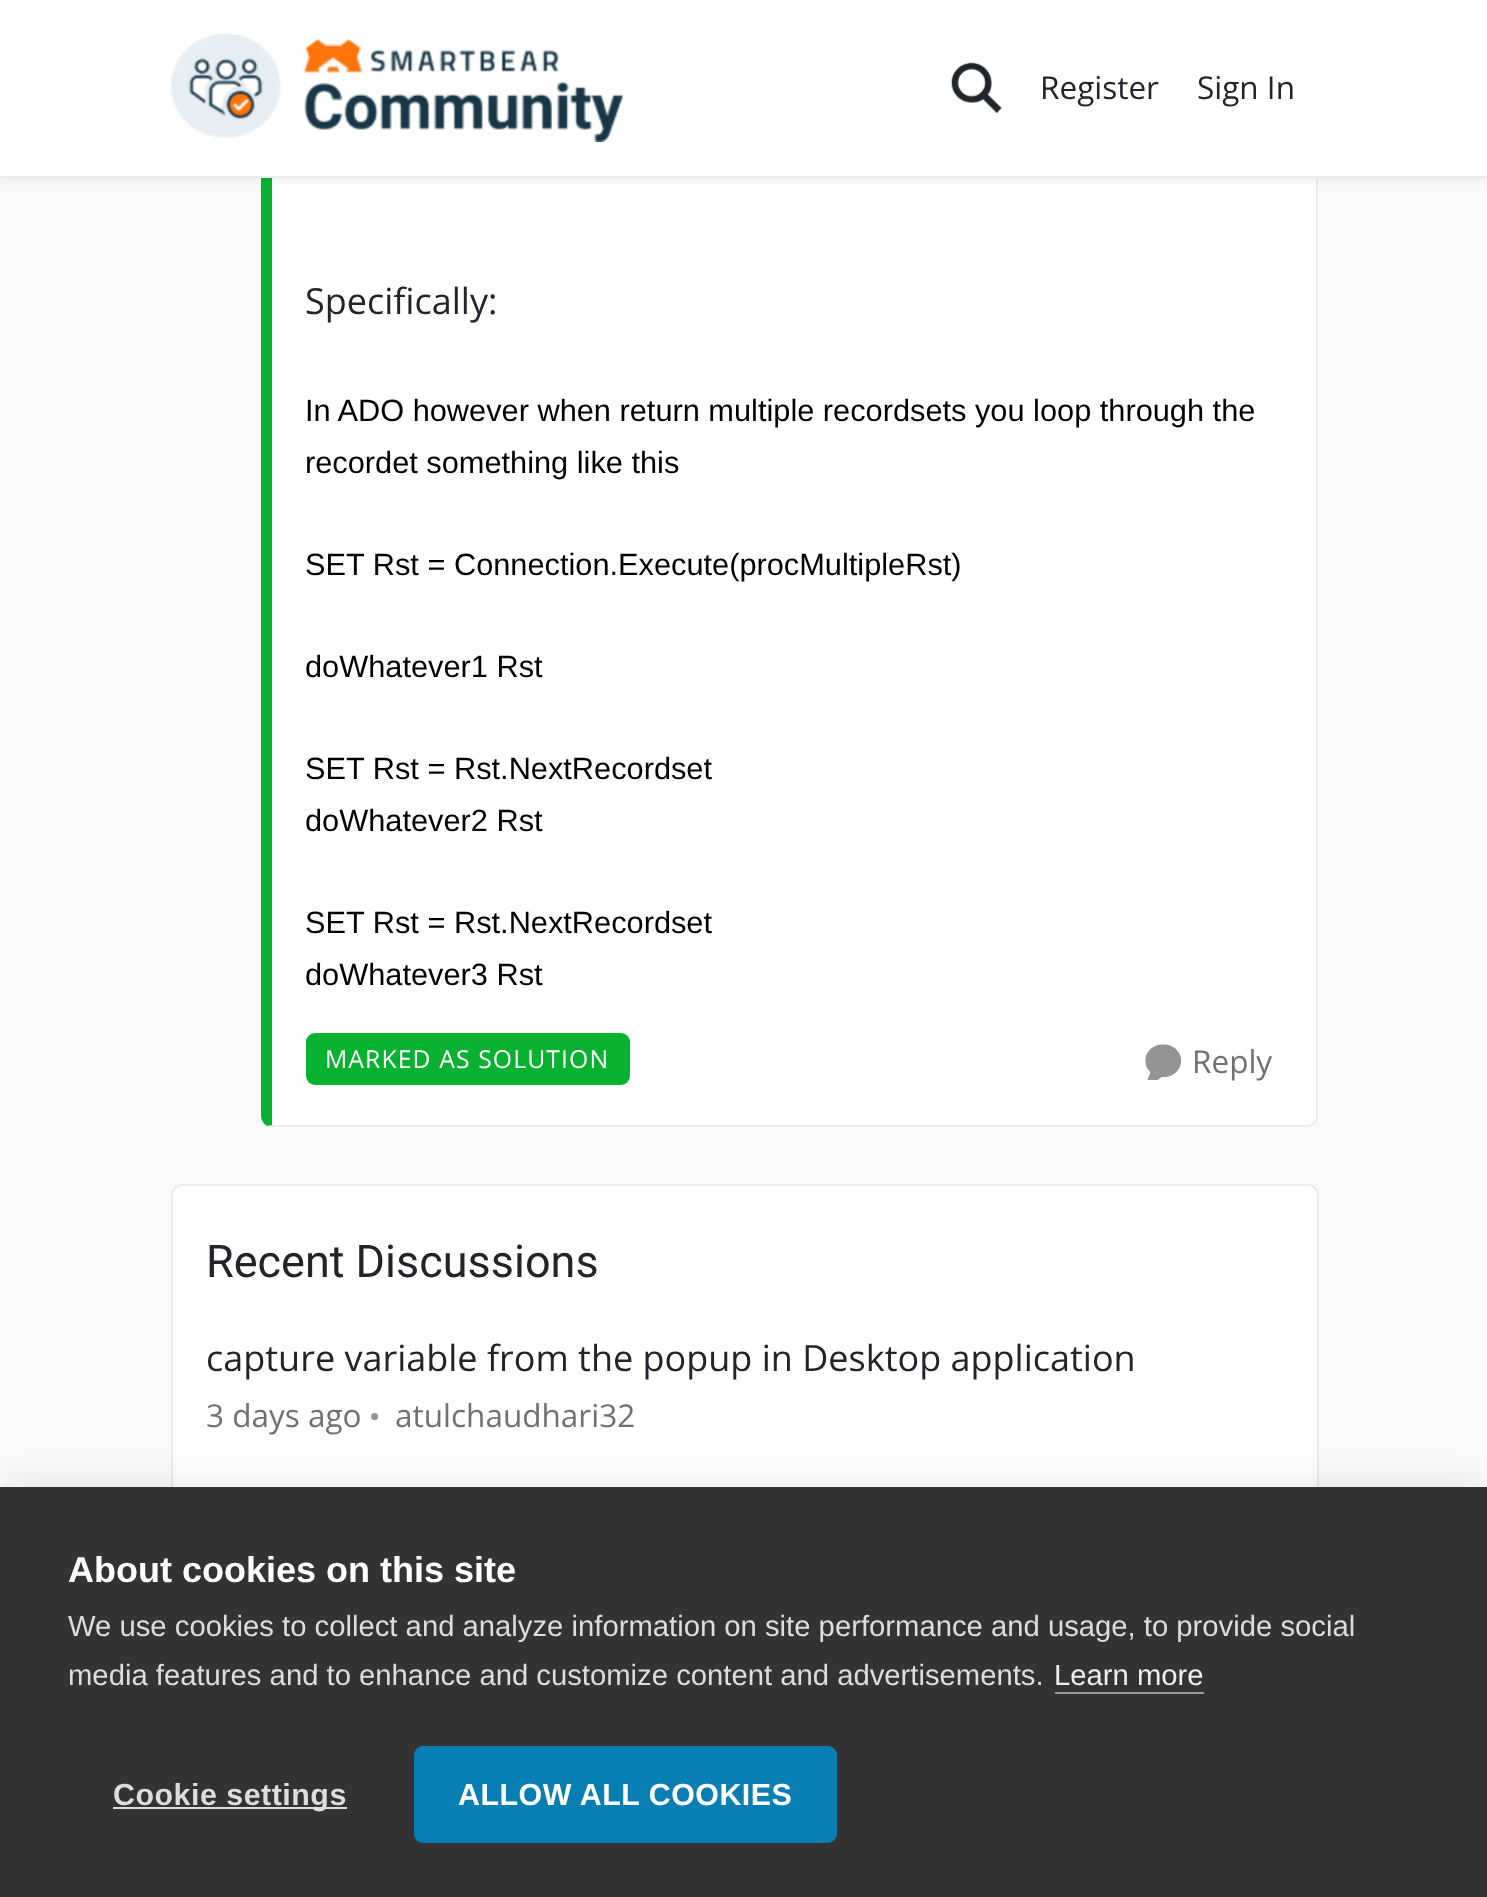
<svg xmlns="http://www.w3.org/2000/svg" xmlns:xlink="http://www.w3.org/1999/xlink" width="1487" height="1897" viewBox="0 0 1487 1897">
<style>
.cls-1{font:31.5px Open Sans;fill:#212429}
.cls-2{font:36px Open Sans;fill:#212429}
.cls-3{font:30.75px Liberation Sans;fill:#000000}
.cls-4{font:24.75px Open Sans;letter-spacing:1.1px;fill:#ffffff}
.cls-5{font:31.5px Open Sans;fill:#707070}
.cls-6{font:45px Roboto;fill:#212429}
.cls-7{font:bold 36px Liberation Sans;fill:#ffffff}
.cls-8{font:29.25px Liberation Sans;fill:#dddddd}
.cls-9{font:29.25px Liberation Sans;fill:#eeeeee}
.cls-10{font:bold 30.4px Liberation Sans;letter-spacing:0.5px;fill:#dddddd}
.cls-11{font:bold 30.4px Liberation Sans;letter-spacing:0.5px;fill:#ffffff}
</style>
<rect width="100%" height="100%" fill="#f8fafb"/>
<rect fill="#ffffff" x="261" y="-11" width="1058" height="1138" rx="11"/>
<path fill="#ebebeb" d="M1315-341C1317-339 1318-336 1318-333V1116C1318 1119 1317 1122 1315 1124L1313 1122C1315 1121 1316 1118 1316 1116V-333C1316-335 1315-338 1313-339Z"/>
<path fill="#000000" fill-opacity="0.08" d="M1315 1124C1313 1126 1310 1127 1307 1127H272C270 1127 269 1127 267 1126L272 1125H1307C1310 1125 1312 1124 1313 1122Z"/>
<path fill="#08b130" d="M272-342L267-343C264-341 261-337 261-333V1116C261 1120 264 1124 267 1126L272 1125Z"/>
<rect fill="#333333" fill-opacity="0.06" filter="blur(4.5px)" x="0" y="5" width="1487" height="177"/>
<rect fill="#ffffff" x="0" y="0" width="1487" height="176"/>
<rect fill="#ebebeb" x="0" y="176" width="1487" height="2"/>
<image xlink:href="image0.png" x="170" y="34" width="454" height="108"/>
<image xlink:href="image1.png" x="951" y="62" width="51" height="52"/>
<rect fill="#08b130" x="306" y="1033" width="324" height="52" rx="9"/>
<image xlink:href="image2.png" x="1145" y="1044" width="37" height="37"/>
<rect fill="#ffffff" stroke="#ebebeb" stroke-width="2" x="172" y="1185" width="1146" height="704" rx="10"/>
<circle fill="#949494" cx="374.5" cy="1416.5" r="3.5"/>
<rect fill="#000000" fill-opacity="0.1" filter="blur(22.5px)" x="0" y="1487" width="1487" height="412"/>
<rect fill="#333333" x="0" y="1487" width="1487" height="410"/>
<rect fill="#999999" x="1055" y="1692" width="149" height="2"/>
<rect fill="#dddddd" x="113" y="1807" width="234" height="2"/>
<rect fill="#097eb2" x="414" y="1746" width="423" height="97" rx="9"/>
<text class="cls-1" x="1040" y="99">Register</text>
<text class="cls-1" x="1197" y="99">Sign In</text>
<text class="cls-2" x="305" y="314">Specifically:</text>
<text class="cls-3"><tspan x="305" y="421">In ADO however when return multiple recordsets you loop through the</tspan><tspan x="305" y="473">recordet something like this</tspan></text>
<text class="cls-3" x="305" y="575">SET Rst = Connection.Execute(procMultipleRst)</text>
<text class="cls-3" x="305" y="677">doWhatever1 Rst</text>
<text class="cls-3"><tspan x="305" y="779">SET Rst = Rst.NextRecordset</tspan><tspan x="305" y="831">doWhatever2 Rst</tspan></text>
<text class="cls-3"><tspan x="305" y="933">SET Rst = Rst.NextRecordset</tspan><tspan x="305" y="985">doWhatever3 Rst</tspan></text>
<text class="cls-4" x="325" y="1068">MARKED AS SOLUTION</text>
<text class="cls-5" x="1192" y="1073">Reply</text>
<text class="cls-6" x="206" y="1277">Recent Discussions</text>
<text class="cls-2" x="206" y="1371">capture variable from the popup in Desktop application</text>
<text class="cls-5" x="206" y="1427">3 days ago</text>
<text class="cls-5" x="395" y="1427">atulchaudhari32</text>
<text class="cls-7" x="68" y="1582">About cookies on this site</text>
<text class="cls-8"><tspan x="68" y="1636">We use cookies to collect and analyze information on site performance and usage, to provide social</tspan><tspan x="68" y="1685">media features and to enhance and customize content and advertisements.</tspan></text>
<text class="cls-9" x="1054" y="1685">Learn more</text>
<text class="cls-10" x="113" y="1805">Cookie settings</text>
<text class="cls-11" x="458" y="1805">ALLOW ALL COOKIES</text>
</svg>
